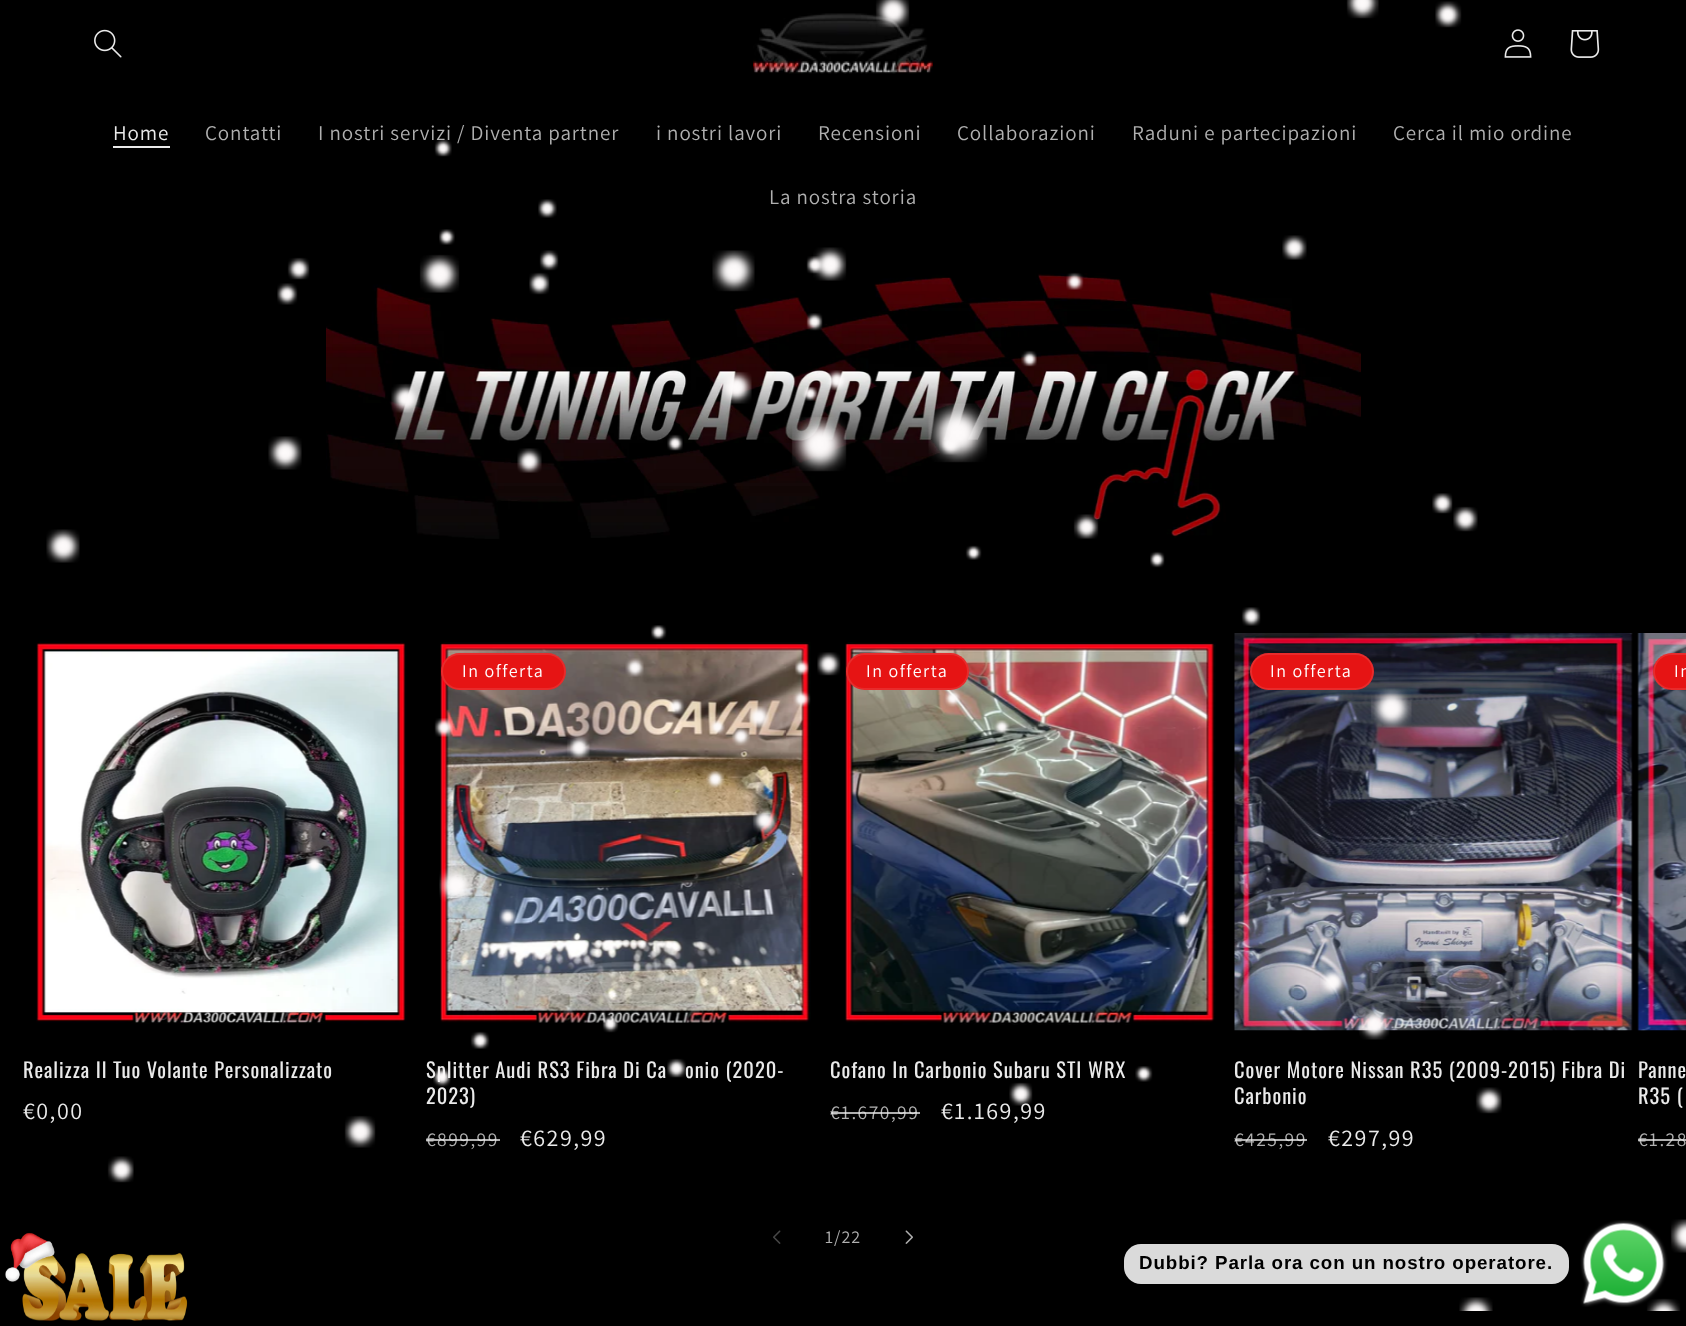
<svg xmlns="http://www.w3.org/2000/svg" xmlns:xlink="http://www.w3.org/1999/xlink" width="1686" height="1326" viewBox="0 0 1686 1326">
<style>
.cls-1{font:21px Assistant;letter-spacing:0.9px;fill:#eaeaea}
.cls-2{font:21px Assistant;letter-spacing:0.9px;fill:#b0b0b0}
.cls-3{font:20.5px Oswald;letter-spacing:0.95px;fill:#eaeaea}
.cls-4{font:24px Assistant;letter-spacing:1.5px;fill:#eaeaea}
.cls-5{font:18px Assistant;letter-spacing:1.5px;fill:#ffffff}
.cls-6{font:19.5px Assistant;letter-spacing:1.5px;fill:#b0b0b0}
.cls-7{font:18px Assistant;letter-spacing:1px;fill:#b0b0b0}
.cls-8{font:bold 18.75px Liberation Sans;letter-spacing:0.9px;fill:#000000}
</style>
<rect width="100%" height="100%" fill="#000000"/>
<image xlink:href="image1.png" x="94" y="29" width="28" height="29"/>
<image xlink:href="image2.png" x="753" y="13" width="180" height="61"/>
<image xlink:href="image3.png" x="1504" y="29" width="28" height="29"/>
<image xlink:href="image4.png" x="1570" y="30" width="30" height="28"/>
<rect fill="#eaeaea" x="113" y="146" width="57" height="2"/>
<image xlink:href="image5.png" x="326" y="273" width="1035" height="266"/>
<image xlink:href="image6.png" x="36" y="641" width="371" height="383"/>
<image xlink:href="image7.png" x="440" y="642" width="371" height="381"/>
<rect fill="#e61414" x="441" y="653" width="125" height="37" rx="18.5"/>
<rect fill="none" stroke="#ffffff" stroke-opacity="0.1" stroke-width="2" x="442" y="654" width="123" height="35" rx="17.5"/>
<image xlink:href="image8.png" x="845" y="642" width="371" height="383"/>
<rect fill="#e61414" x="846" y="653" width="123" height="37" rx="18.5"/>
<rect fill="none" stroke="#ffffff" stroke-opacity="0.1" stroke-width="2" x="847" y="654" width="121" height="35" rx="17.5"/>
<image xlink:href="image9.png" x="1234" y="633" width="399" height="398"/>
<rect fill="#e61414" x="1250" y="653" width="124" height="37" rx="18.5"/>
<rect fill="none" stroke="#ffffff" stroke-opacity="0.1" stroke-width="2" x="1251" y="654" width="122" height="35" rx="17.5"/>
<image xlink:href="image10.png" x="1637" y="633" width="49" height="398"/>
<path fill="#e61414" d="M1671.5 653H1686V690H1671.5C1661.5 690 1653 681.5 1653 671.5C1653 661.5 1661.5 653 1671.5 653Z"/>
<rect fill="none" stroke="#ffffff" stroke-opacity="0.1" stroke-width="2" x="1654" y="654" width="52" height="35" rx="17.5"/>
<image xlink:href="image11.png" x="773" y="1230" width="8" height="14"/>
<image xlink:href="image12.png" x="905" y="1230" width="8" height="14"/>
<text class="cls-1" x="113" y="140">Home</text>
<text class="cls-2" x="205" y="140">Contatti</text>
<text class="cls-2" x="318" y="140">I nostri servizi / Diventa partner</text>
<text class="cls-2" x="656" y="140">i nostri lavori</text>
<text class="cls-2" x="818" y="140">Recensioni</text>
<text class="cls-2" x="957" y="140">Collaborazioni</text>
<text class="cls-2" x="1132" y="140">Raduni e partecipazioni</text>
<text class="cls-2" x="1393" y="140">Cerca il mio ordine</text>
<text class="cls-2" x="769" y="204">La nostra storia</text>
<text class="cls-3" x="23" y="1078">Realizza Il Tuo Volante Personalizzato</text>
<text class="cls-4" x="23" y="1119">€0,00</text>
<text class="cls-5" x="462" y="677">In offerta</text>
<text class="cls-3" x="426" y="1078">Splitter Audi RS3 Fibra Di Ca</text>
<text class="cls-3" x="685" y="1078">onio (2020-</text>
<text class="cls-3" x="426" y="1104">2023)</text>
<text class="cls-6" x="426" y="1146">€899,99</text>
<rect fill="#eaeaea" fill-opacity="0.75" x="426" y="1139" width="74" height="2"/>
<text class="cls-4" x="520" y="1146">€629,99</text>
<text class="cls-5" x="866" y="677">In offerta</text>
<text class="cls-3" x="830" y="1078">Cofano In Carbonio Subaru STI WRX</text>
<text class="cls-6" x="830" y="1119">€1.670,99</text>
<rect fill="#eaeaea" fill-opacity="0.75" x="831" y="1112" width="89" height="2"/>
<text class="cls-4" x="941" y="1119">€1.169,99</text>
<text class="cls-5" x="1270" y="677">In offerta</text>
<text class="cls-3"><tspan x="1234" y="1078">Cover Motore Nissan R35 (2009-2015) Fibra Di</tspan><tspan x="1234" y="1104">Carbonio</tspan></text>
<text class="cls-6" x="1234" y="1146">€425,99</text>
<rect fill="#eaeaea" fill-opacity="0.75" x="1235" y="1139" width="72" height="2"/>
<text class="cls-4" x="1328" y="1146">€297,99</text>
<text class="cls-5" x="1674" y="677">In</text>
<text class="cls-3"><tspan x="1638" y="1078">Panne</tspan><tspan x="1638" y="1104">R35 (</tspan></text>
<text class="cls-6" x="1638" y="1146">€1.28</text>
<rect fill="#eaeaea" fill-opacity="0.75" x="1638" y="1139" width="48" height="2"/>
<text class="cls-7" x="825" y="1243">1/22</text>
<image xlink:href="image0.png" x="46" y="0" width="1640" height="1311"/>
<image xlink:href="image13.png" x="5" y="1232" width="183" height="89"/>
<rect fill="#dadada" x="1124" y="1244" width="445" height="40" rx="17"/>
<text class="cls-8" x="1139" y="1269">Dubbi? Parla ora con un nostro operatore.</text>
<image xlink:href="image14.png" x="1580" y="1220" width="88" height="87"/>
</svg>
